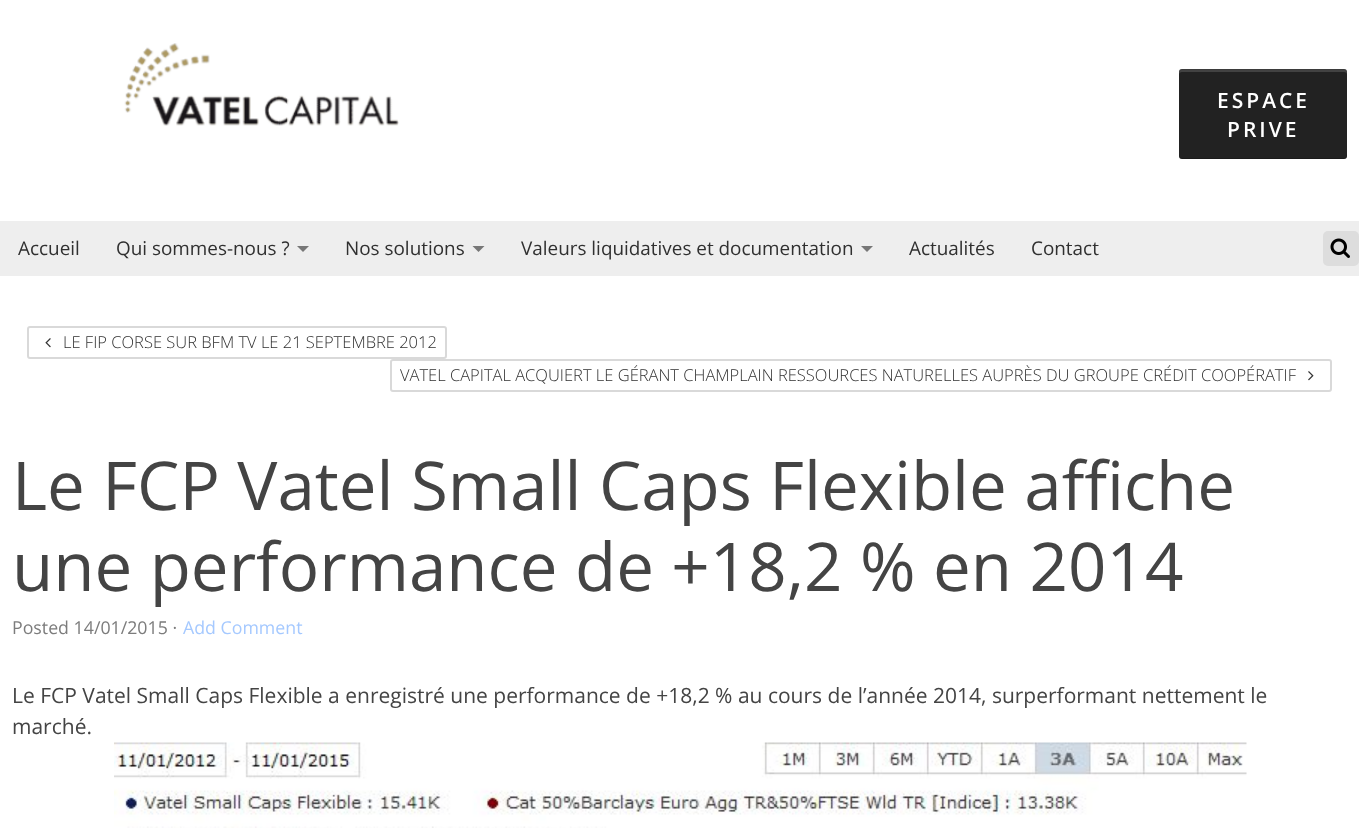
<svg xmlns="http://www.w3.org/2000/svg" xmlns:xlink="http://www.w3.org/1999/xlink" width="1359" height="828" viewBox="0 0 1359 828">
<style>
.cls-1{font:600 21px Open Sans;letter-spacing:3px;fill:#ffffff}
.cls-2{font:18.9px Open Sans;fill:#303030}
.cls-3{font:300 16.5px Open Sans;fill:#303030}
.cls-4{font:67.25px Open Sans;fill:#444444}
.cls-5{font:17.75px Open Sans;fill:#7c7c7c}
.cls-6{font:17.75px Open Sans;fill:#a5c9ff}
.cls-7{font:21px Open Sans;fill:#444444}
</style>
<rect width="100%" height="100%" fill="#ffffff"/>
<image xlink:href="image0.png" x="124" y="43" width="275" height="83"/>
<rect fill="#222222" x="1179" y="69" width="168" height="90" rx="3"/>
<path fill="#000000" fill-opacity="0.2" d="M1179 154V156C1179 158 1180 159 1182 159H1344C1346 159 1347 158 1347 156V154C1347 156 1346 158 1344 158H1182C1180 158 1179 156 1179 154Z"/>
<path fill="#ffffff" fill-opacity="0.15" d="M1182 72H1344C1346 72 1347 73 1347 75V72C1347 70 1346 69 1344 69H1182C1180 69 1179 70 1179 72V75C1179 73 1180 72 1182 72Z"/>
<path fill="#000000" fill-opacity="0.1" d="M1182 70H1344C1346 70 1347 72 1347 74V72C1347 70 1346 69 1344 69H1182C1180 69 1179 70 1179 72V74C1179 72 1180 70 1182 70Z"/>
<rect fill="#eeeeee" x="0" y="221" width="1359" height="55"/>
<path fill="#777777" d="M297 246H309L303 252Z"/>
<path fill="#777777" d="M472.5 246H484.5L478.5 252Z"/>
<path fill="#777777" d="M861 246H873L867 252Z"/>
<rect fill="#dddddd" x="1323" y="231" width="36" height="35" rx="5"/>
<image xlink:href="image1.png" x="1330" y="238" width="20" height="20"/>
<rect fill="none" stroke="#d9d9d9" stroke-width="2" x="28" y="327" width="418" height="31" rx="2"/>
<image xlink:href="image2.png" x="45" y="338" width="6" height="10"/>
<rect fill="none" stroke="#d9d9d9" stroke-width="2" x="391" y="360" width="940" height="31" rx="2"/>
<image xlink:href="image3.png" x="1308" y="371" width="6" height="10"/>
<image xlink:href="image4.png" x="114" y="742" width="1133" height="86"/>
<text class="cls-1" x="1217" y="108">ESPACE</text>
<text class="cls-1" x="1227" y="137">PRIVE</text>
<text class="cls-2" x="18" y="255">Accueil</text>
<text class="cls-2" x="116" y="255">Qui sommes-nous ?</text>
<text class="cls-2" x="345" y="255">Nos solutions</text>
<text class="cls-2" x="521" y="255">Valeurs liquidatives et documentation</text>
<text class="cls-2" x="909" y="255">Actualités</text>
<text class="cls-2" x="1031" y="255">Contact</text>
<text class="cls-3" x="63" y="348">LE FIP CORSE SUR BFM TV LE 21 SEPTEMBRE 2012</text>
<text class="cls-3" x="400" y="381">VATEL CAPITAL ACQUIERT LE GÉRANT CHAMPLAIN RESSOURCES NATURELLES AUPRÈS DU GROUPE CRÉDIT COOPÉRATIF</text>
<text class="cls-4"><tspan x="12" y="510">Le FCP Vatel Small Caps Flexible affiche</tspan><tspan x="12" y="591">une performance de +18,2 % en 2014</tspan></text>
<text class="cls-5" x="12" y="634">Posted 14/01/2015 ·</text>
<text class="cls-6" x="183" y="634">Add Comment</text>
<text class="cls-7"><tspan x="12" y="703">Le FCP Vatel Small Caps Flexible a enregistré une performance de +18,2 % au cours de l’année 2014, surperformant nettement le</tspan><tspan x="12" y="734">marché.</tspan></text>
</svg>
